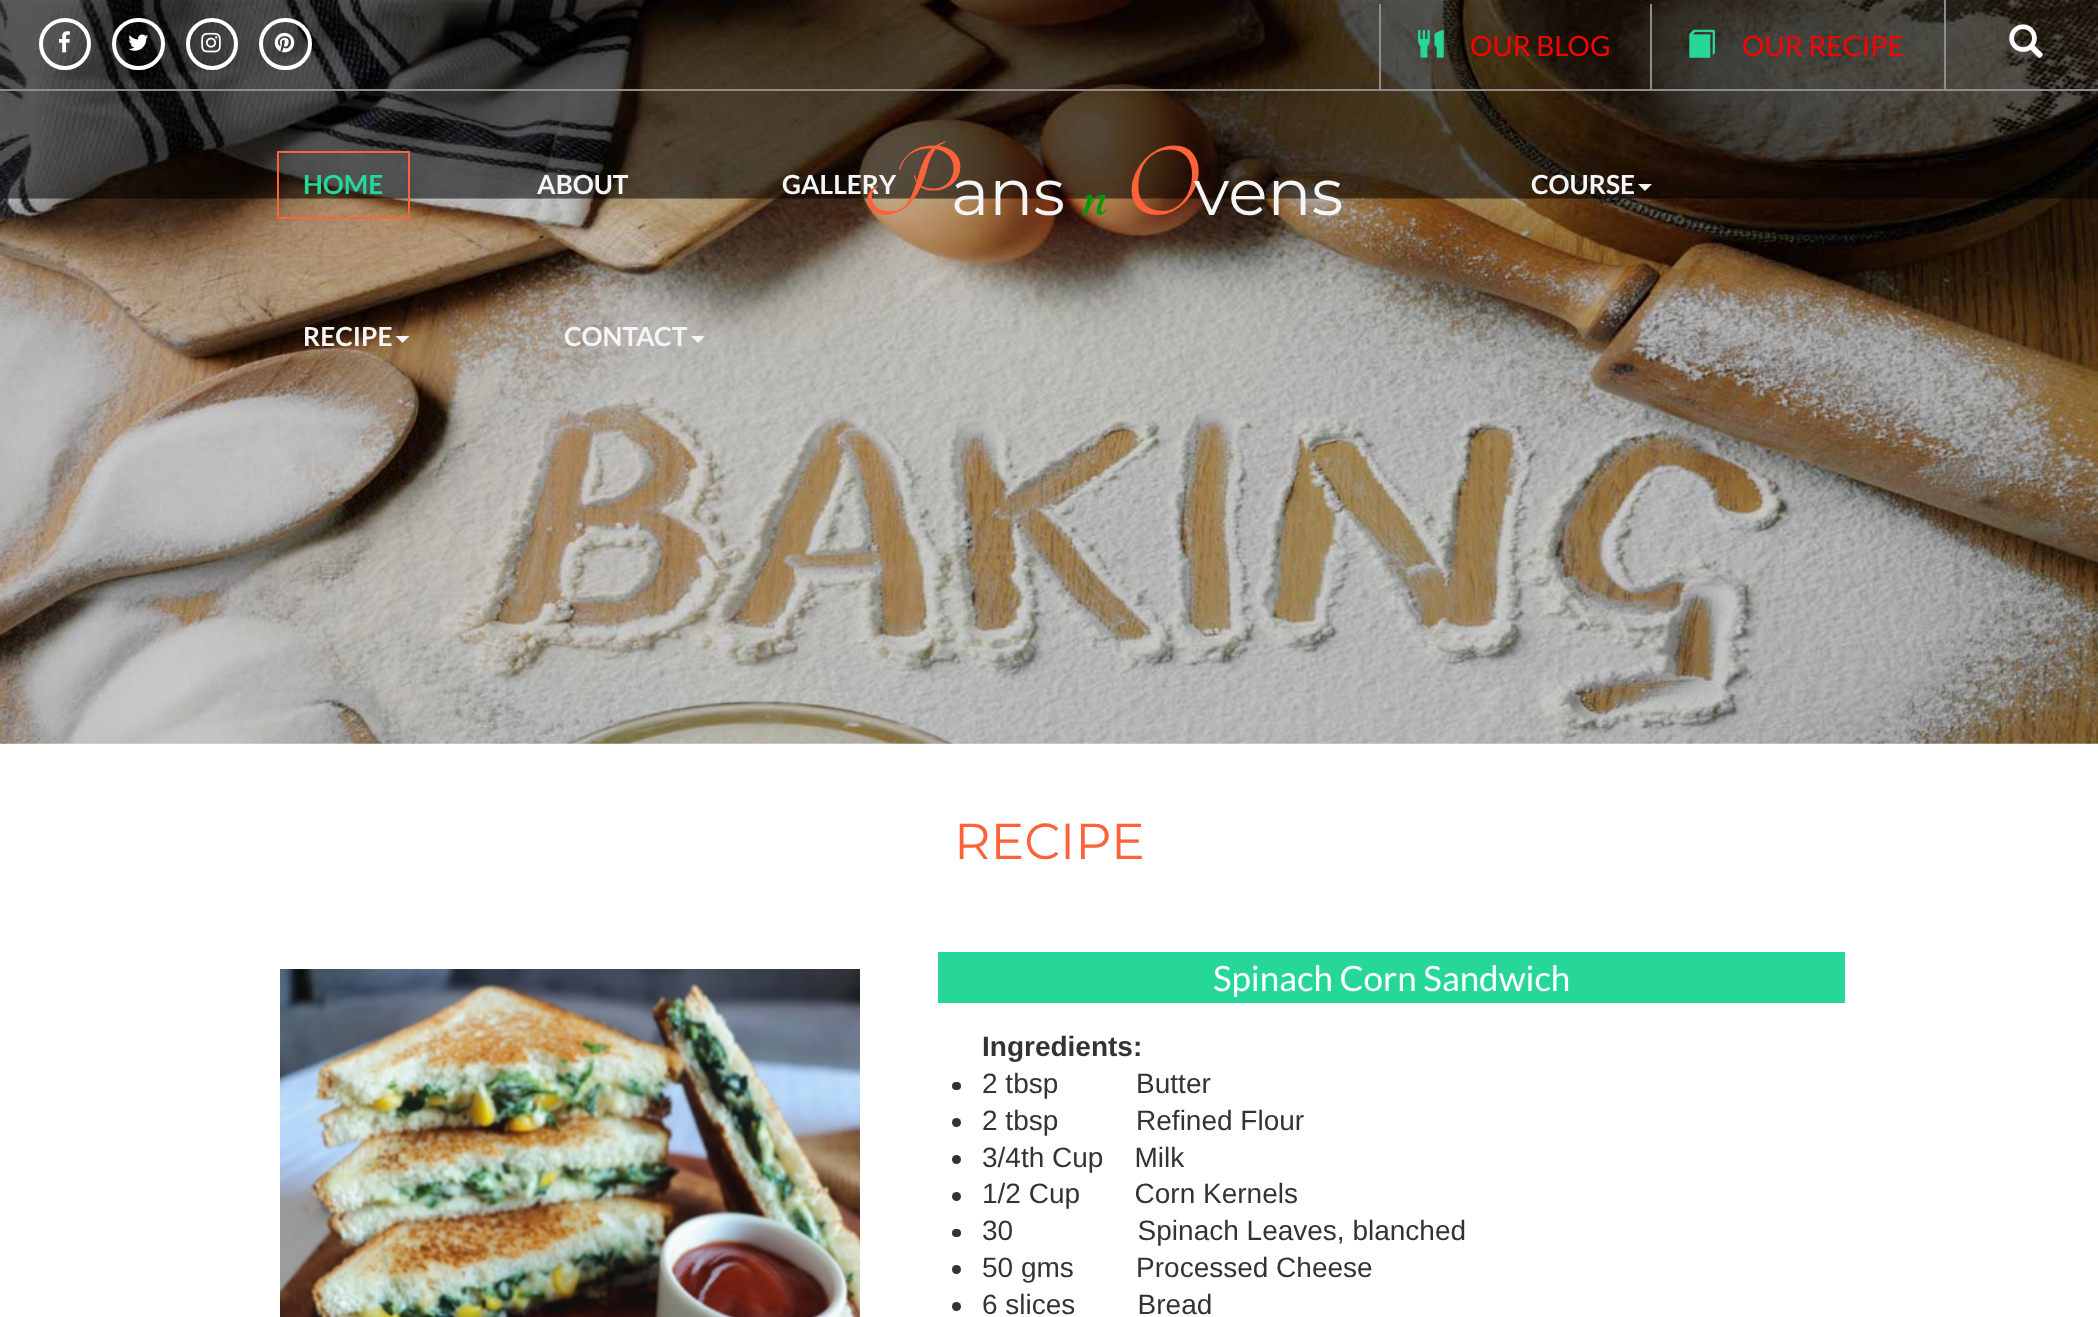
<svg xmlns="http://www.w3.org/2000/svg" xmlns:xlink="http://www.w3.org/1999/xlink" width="2098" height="1317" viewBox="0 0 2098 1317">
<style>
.cls-1{font:28px Lato;fill:#ff0000}
.cls-2{font:bold 80px Tangerine;fill:#009900}
.cls-3{font:bold 108px Tangerine;fill:#fd6239}
.cls-4{font:65px Montserrat;fill:#f5f5f5}
.cls-5{font:bold 26.25px Lato;fill:#26d797}
.cls-6{font:bold 26.25px Lato;fill:#f5f5f5}
.cls-7{font:50.5px Montserrat;fill:#fd6239}
.cls-8{font:35px Lato;fill:#ffffff}
.cls-9{font:bold 28px Liberation Sans;fill:#333333}
.cls-10{font:28px Liberation Sans;fill:#333333}
</style>
<rect width="100%" height="100%" fill="#ffffff"/>
<image xlink:href="image0.png" x="0" y="0" width="2098" height="744"/>
<rect fill="#918c8c" x="0" y="89" width="2098" height="2"/>
<circle fill="none" stroke="#ffffff" stroke-width="4" cx="65" cy="44" r="24"/>
<image xlink:href="image1.png" x="58" y="31" width="12" height="22"/>
<rect fill="none" stroke="#ffffff" stroke-width="4" x="114" y="20" width="49" height="48" rx="24"/>
<image xlink:href="image2.png" x="128" y="34" width="21" height="17"/>
<circle fill="none" stroke="#ffffff" stroke-width="4" cx="212" cy="44" r="24"/>
<image xlink:href="image3.png" x="201" y="32" width="20" height="21"/>
<rect fill="none" stroke="#ffffff" stroke-width="4" x="261" y="20" width="49" height="48" rx="24"/>
<image xlink:href="image4.png" x="274" y="32" width="21" height="21"/>
<rect fill="#918c8c" x="1379" y="4" width="2" height="85"/>
<image xlink:href="image5.png" x="1418" y="29" width="26" height="29"/>
<rect fill="#918c8c" x="1650" y="4" width="2" height="85"/>
<image xlink:href="image6.png" x="1689" y="29" width="26" height="29"/>
<rect fill="#918c8c" x="1944" y="0" width="2" height="89"/>
<image xlink:href="image7.png" x="2009" y="24" width="34" height="34"/>
<rect fill="#fd6239" x="277" y="151" width="2" height="68"/>
<rect fill="#fd6239" x="277" y="151" width="133" height="2"/>
<rect fill="#fd6239" x="277" y="217" width="133" height="2"/>
<rect fill="#fd6239" x="408" y="151" width="2" height="68"/>
<path fill="#f5f5f5" d="M1638 184H1652L1645 191Z"/>
<path fill="#f5f5f5" d="M395.5 336H409.5L402.5 343Z"/>
<path fill="#f5f5f5" d="M691 336H705L698 343Z"/>
<image xlink:href="image8.png" x="280" y="969" width="580" height="348"/>
<rect fill="#26d797" x="938" y="952" width="907" height="51"/>
<rect fill="#333333" x="952" y="1082" width="9" height="8" rx="4"/>
<circle fill="#333333" cx="956.5" cy="1122.5" r="4.5"/>
<circle fill="#333333" cx="956.5" cy="1159.5" r="4.5"/>
<circle fill="#333333" cx="956.5" cy="1196.5" r="4.5"/>
<rect fill="#333333" x="952" y="1229" width="9" height="8" rx="4"/>
<circle fill="#333333" cx="956.5" cy="1269.5" r="4.5"/>
<circle fill="#333333" cx="956.5" cy="1306.5" r="4.5"/>
<text class="cls-1" x="1470" y="56">OUR BLOG</text>
<text class="cls-1" x="1742" y="56">OUR RECIPE</text>
<text class="cls-2" x="1081" y="215">n</text>
<text class="cls-3" x="1124" y="215">O</text>
<text class="cls-4" x="1194" y="215">vens</text>
<text class="cls-5" x="303" y="194">HOME</text>
<text class="cls-6" x="537" y="194">ABOUT</text>
<text class="cls-6" x="782" y="194">GALLERY</text>
<text class="cls-3" x="862" y="215">P</text>
<text class="cls-4" x="951" y="215">ans</text>
<text class="cls-6" x="1531" y="194">COURSE</text>
<text class="cls-6" x="303" y="346">RECIPE</text>
<text class="cls-6" x="564" y="346">CONTACT</text>
<text class="cls-7" x="954" y="859">RECIPE</text>
<text class="cls-8" x="1213" y="991">Spinach Corn Sandwich</text>
<text class="cls-9" x="982" y="1056">Ingredients:</text>
<text class="cls-10" xml:space="preserve"><tspan x="982" y="1093">2 tbsp          Butter</tspan><tspan x="982" y="1130">2 tbsp          Refined Flour</tspan><tspan x="982" y="1167">3/4th Cup    Milk</tspan><tspan x="982" y="1203">1/2 Cup       Corn Kernels</tspan><tspan x="982" y="1240">30                Spinach Leaves, blanched</tspan><tspan x="982" y="1277">50 gms        Processed Cheese</tspan><tspan x="982" y="1314">6 slices        Bread</tspan></text>
</svg>
